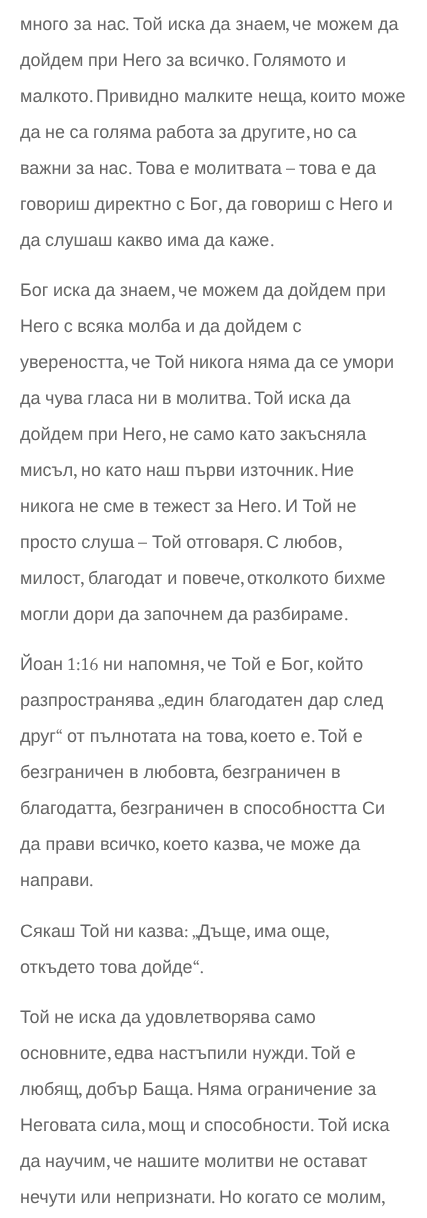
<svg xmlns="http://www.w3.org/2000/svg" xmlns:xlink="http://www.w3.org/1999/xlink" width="427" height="1218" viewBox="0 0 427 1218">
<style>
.cls-1{font:18px Liberation Sans;fill:#666666}
.cls-2{font:18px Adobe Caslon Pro;fill:#666666}
</style>
<rect width="100%" height="100%" fill="#ffffff"/>
<text class="cls-1" x="20" y="30">много за нас</text>
<text class="cls-2" x="125" y="30">.</text>
<text class="cls-1" x="133" y="30">Той иска да знаем</text>
<text class="cls-2" x="285" y="30">,</text>
<text class="cls-1" x="292" y="30">че можем да</text>
<text class="cls-1" x="20" y="66" word-spacing="-0.5">дойдем при Него за всичко</text>
<text class="cls-2" x="245" y="66">.</text>
<text class="cls-1" x="253" y="66" word-spacing="-0.5">Голямото и</text>
<text class="cls-1" x="20" y="102">малкото</text>
<text class="cls-2" x="89" y="102">.</text>
<text class="cls-1" x="96" y="102">Привидно малките неща</text>
<text class="cls-2" x="302" y="102">,</text>
<text class="cls-1" x="310" y="102">които може</text>
<text class="cls-1" x="20" y="138" word-spacing="-0.5">да не са голяма работа за другите</text>
<text class="cls-2" x="306" y="138">,</text>
<text class="cls-1" x="313" y="138" word-spacing="-0.5">но са</text>
<text class="cls-1" x="20" y="174" word-spacing="-0.5">важни за нас</text>
<text class="cls-1" x="136" y="174" word-spacing="-0.5">Това е молитвата</text>
<text class="cls-2" x="286" y="174">–</text>
<text class="cls-1" x="299" y="174" word-spacing="-0.5">това е да</text>
<text class="cls-2" x="128" y="174">.</text>
<text class="cls-1" x="20" y="210" word-spacing="-0.5">говориш директно с Бог</text>
<text class="cls-2" x="218" y="210">,</text>
<text class="cls-1" x="226" y="210" word-spacing="-0.5">да говориш с Него и</text>
<text class="cls-1" x="20" y="246" word-spacing="-0.5">да слушаш какво има да каже</text>
<text class="cls-2" x="270" y="246">.</text>
<text class="cls-1" x="20" y="296" word-spacing="-0.5">Бог иска да знаем</text>
<text class="cls-2" x="171" y="296">,</text>
<text class="cls-1" x="178" y="296" word-spacing="-0.5">че можем да дойдем при</text>
<text class="cls-1" x="20" y="332" word-spacing="-0.5">Него с всяка молба и да дойдем с</text>
<text class="cls-1" x="20" y="368">увереността</text>
<text class="cls-2" x="124" y="368">,</text>
<text class="cls-1" x="131" y="368" word-spacing="-0.5">че Той никога няма да се умори</text>
<text class="cls-1" x="20" y="404" word-spacing="-0.5">да чува гласа ни в молитва</text>
<text class="cls-2" x="247" y="404">.</text>
<text class="cls-1" x="254" y="404" word-spacing="-0.5">Той иска да</text>
<text class="cls-1" x="20" y="440" word-spacing="-0.5">дойдем при Него</text>
<text class="cls-2" x="162" y="440">,</text>
<text class="cls-1" x="169" y="440" word-spacing="-0.5">не само като закъсняла</text>
<text class="cls-1" x="20" y="476">мисъл</text>
<text class="cls-2" x="73" y="476">,</text>
<text class="cls-1" x="81" y="476" word-spacing="-0.5">но като наш първи източник</text>
<text class="cls-2" x="314" y="476">.</text>
<text class="cls-1" x="321" y="476">Ние</text>
<text class="cls-1" x="20" y="512" word-spacing="-0.5">никога не сме в тежест за Него</text>
<text class="cls-2" x="277" y="512">.</text>
<text class="cls-1" x="285" y="512" word-spacing="-0.5">И Той не</text>
<text class="cls-1" x="20" y="548" word-spacing="-0.5">просто слуша</text>
<text class="cls-2" x="138" y="548">–</text>
<text class="cls-1" x="152" y="548" word-spacing="-0.5">Той отговаря</text>
<text class="cls-1" x="266" y="548" word-spacing="-0.5">С любов</text>
<text class="cls-2" x="259" y="548">.</text>
<text class="cls-2" x="338" y="548">,</text>
<text class="cls-1" x="20" y="584">милост</text>
<text class="cls-2" x="80" y="584">,</text>
<text class="cls-1" x="88" y="584">благодат и повече</text>
<text class="cls-2" x="240" y="584">,</text>
<text class="cls-1" x="247" y="584">отколкото бихме</text>
<text class="cls-1" x="20" y="620" word-spacing="-0.5">могли дори да започнем да разбираме</text>
<text class="cls-2" x="344" y="620">.</text>
<text class="cls-1" x="20" y="670">Йоан</text>
<text class="cls-2" x="67" y="670">1:16</text>
<text class="cls-1" x="103" y="670">ни напомня</text>
<text class="cls-2" x="200" y="670">,</text>
<text class="cls-1" x="207" y="670">че Той е Бог</text>
<text class="cls-2" x="309" y="670">,</text>
<text class="cls-1" x="317" y="670">който</text>
<text class="cls-1" x="20" y="706">разпространява</text>
<text class="cls-2" x="158" y="706">„</text>
<text class="cls-1" x="164" y="706">един благодатен дар след</text>
<text class="cls-2" x="56" y="742">“</text>
<text class="cls-1" x="318" y="742">Той е</text>
<text class="cls-1" x="20" y="742">друг</text>
<text class="cls-1" x="67" y="742">от пълнотата на това</text>
<text class="cls-2" x="243" y="742">,</text>
<text class="cls-1" x="250" y="742">което е</text>
<text class="cls-2" x="311" y="742">.</text>
<text class="cls-1" x="20" y="778">безграничен в любовта</text>
<text class="cls-2" x="214" y="778">,</text>
<text class="cls-1" x="222" y="778">безграничен в</text>
<text class="cls-1" x="20" y="814">благодатта</text>
<text class="cls-2" x="112" y="814">,</text>
<text class="cls-1" x="120" y="814">безграничен в способността Си</text>
<text class="cls-1" x="20" y="850">да прави всичко</text>
<text class="cls-2" x="155" y="850">,</text>
<text class="cls-1" x="163" y="850">което казва</text>
<text class="cls-2" x="259" y="850">,</text>
<text class="cls-1" x="266" y="850">че може да</text>
<text class="cls-1" x="20" y="886">направи</text>
<text class="cls-2" x="89" y="886">.</text>
<text class="cls-1" x="20" y="937">Сякаш</text>
<text class="cls-1" x="80" y="937">Той</text>
<text class="cls-1" x="114" y="937">ни</text>
<text class="cls-1" x="138" y="937">казва</text>
<text class="cls-2" x="184" y="937">: „</text>
<text class="cls-1" x="198" y="937">Дъще</text>
<text class="cls-2" x="246" y="937">,</text>
<text class="cls-1" x="254" y="937">има</text>
<text class="cls-1" x="291" y="937">още</text>
<text class="cls-2" x="325" y="937">,</text>
<text class="cls-1" x="20" y="973" word-spacing="-0.5">откъдето това дойде</text>
<text class="cls-2" x="193" y="973">“.</text>
<text class="cls-1" x="20" y="1023" word-spacing="-0.5">Той не иска да удовлетворява само</text>
<text class="cls-1" x="20" y="1059">основните</text>
<text class="cls-2" x="107" y="1059">,</text>
<text class="cls-1" x="114" y="1059">едва настъпили нужди</text>
<text class="cls-2" x="304" y="1059">.</text>
<text class="cls-1" x="311" y="1059">Той е</text>
<text class="cls-1" x="20" y="1095">любящ</text>
<text class="cls-2" x="78" y="1095">,</text>
<text class="cls-1" x="86" y="1095">добър Баща</text>
<text class="cls-2" x="189" y="1095">.</text>
<text class="cls-1" x="197" y="1095">Няма ограничение за</text>
<text class="cls-1" x="20" y="1131" word-spacing="-0.5">Неговата сила</text>
<text class="cls-2" x="141" y="1131">,</text>
<text class="cls-1" x="148" y="1131" word-spacing="-0.5">мощ и способности</text>
<text class="cls-2" x="310" y="1131">.</text>
<text class="cls-1" x="318" y="1131" word-spacing="-0.5">Той иска</text>
<text class="cls-1" x="20" y="1167" word-spacing="-0.5">да научим</text>
<text class="cls-2" x="106" y="1167">,</text>
<text class="cls-1" x="113" y="1167" word-spacing="-0.5">че нашите молитви не остават</text>
<text class="cls-1" x="20" y="1203" word-spacing="-0.5">нечути или непризнати</text>
<text class="cls-2" x="211" y="1203">.</text>
<text class="cls-1" x="219" y="1203" word-spacing="-0.5">Но когато се молим</text>
<text class="cls-2" x="381" y="1203">,</text>
</svg>
